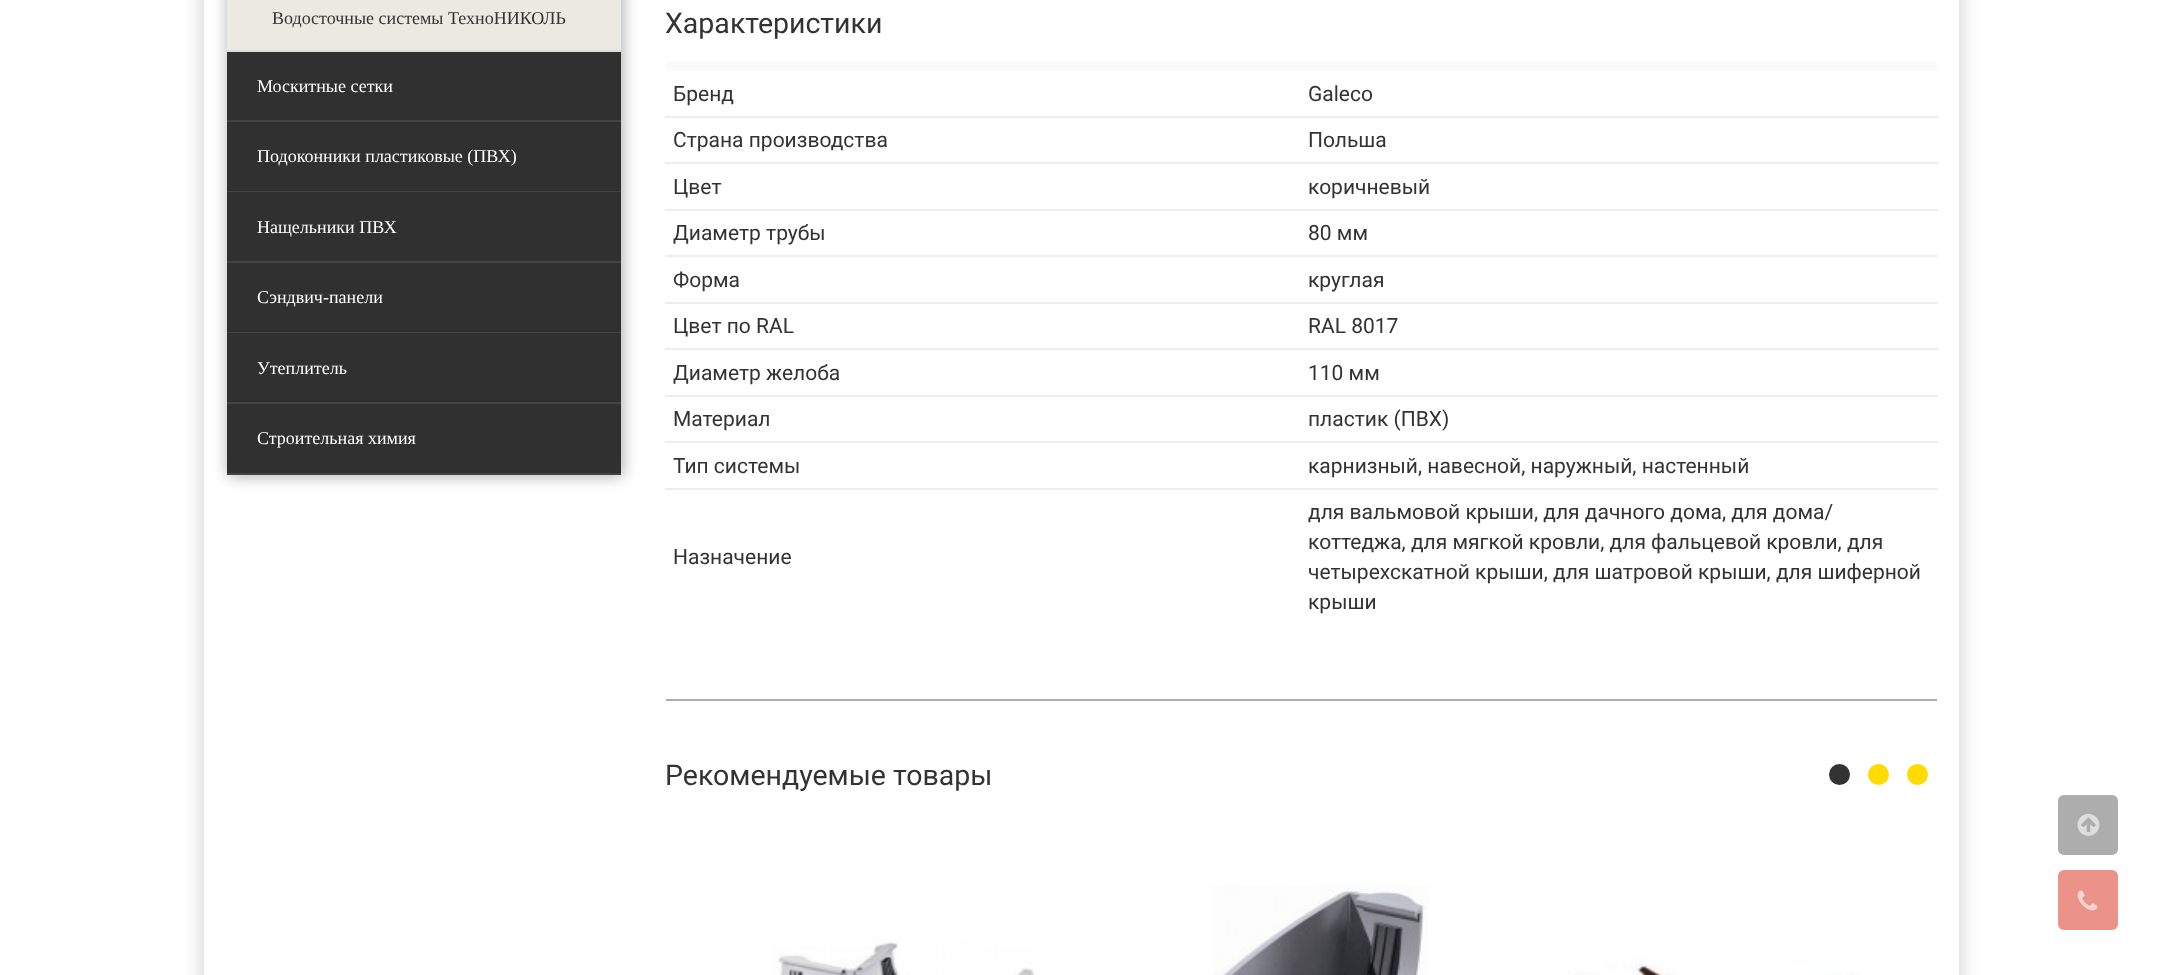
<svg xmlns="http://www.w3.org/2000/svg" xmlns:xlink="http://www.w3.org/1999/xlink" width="2162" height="975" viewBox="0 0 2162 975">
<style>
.cls-1{font:18px Liberation Serif;fill:#333333}
.cls-2{font:18px Liberation Serif;fill:#ffffff}
.cls-3{font:28.5px Roboto;fill:#333333}
.cls-4{font:21px Roboto;fill:#333333}
</style>
<defs>
<clipPath id="clip1"><path d="M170 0H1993V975H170ZM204-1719H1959V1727H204Z" clip-rule="evenodd"/></clipPath>
</defs>
<rect width="100%" height="100%" fill="#ffffff"/>
<g clip-path="url(#clip1)">
<rect fill="#000000" fill-opacity="0.2" filter="blur(11px)" x="204" y="-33" width="1755" height="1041"/>
</g>
<rect fill="#adadad" filter="blur(7.5px)" x="228" y="-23" width="395" height="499"/>
<rect fill="#ece9e2" x="227" y="0" width="394" height="50"/>
<rect fill="#dddddd" x="227" y="50" width="394" height="2"/>
<rect fill="#303030" x="227" y="52" width="394" height="68"/>
<rect fill="#444444" x="227" y="120" width="394" height="2"/>
<rect fill="#303030" x="227" y="122" width="394" height="69"/>
<rect fill="#444444" x="227" y="191" width="394" height="1"/>
<rect fill="#303030" x="227" y="192" width="394" height="69"/>
<rect fill="#444444" x="227" y="261" width="394" height="2"/>
<rect fill="#303030" x="227" y="263" width="394" height="69"/>
<rect fill="#444444" x="227" y="332" width="394" height="1"/>
<rect fill="#303030" x="227" y="333" width="394" height="69"/>
<rect fill="#444444" x="227" y="402" width="394" height="2"/>
<rect fill="#303030" x="227" y="404" width="394" height="69"/>
<rect fill="#444444" x="227" y="473" width="394" height="2"/>
<rect fill="#fafafa" x="666" y="62" width="1271" height="9"/>
<rect fill="#eeeeee" x="665" y="116" width="1273" height="2"/>
<rect fill="#eeeeee" x="665" y="162" width="1273" height="2"/>
<rect fill="#eeeeee" x="665" y="209" width="1273" height="2"/>
<rect fill="#eeeeee" x="665" y="255" width="1273" height="2"/>
<rect fill="#eeeeee" x="665" y="302" width="1273" height="2"/>
<rect fill="#eeeeee" x="665" y="348" width="1273" height="2"/>
<rect fill="#eeeeee" x="665" y="395" width="1273" height="2"/>
<rect fill="#eeeeee" x="665" y="441" width="1273" height="2"/>
<rect fill="#eeeeee" x="665" y="488" width="1273" height="2"/>
<rect fill="#adadad" x="666" y="699" width="1271" height="2"/>
<circle fill="#333333" cx="1839.5" cy="774.5" r="10.5"/>
<circle fill="#ffdc01" cx="1878.5" cy="774.5" r="10.5"/>
<circle fill="#ffdc01" cx="1917.5" cy="774.5" r="10.5"/>
<image xlink:href="image0.png" x="774" y="938" width="262" height="37"/>
<image xlink:href="image1.png" x="1213" y="885" width="215" height="90"/>
<image xlink:href="image2.png" x="1568" y="959" width="294" height="16"/>
<rect fill="#adadad" x="2058" y="795" width="60" height="60" rx="6"/>
<image xlink:href="image3.png" x="2077" y="814" width="23" height="22"/>
<rect fill="#eb9388" x="2058" y="870" width="60" height="60" rx="6"/>
<image xlink:href="image4.png" x="2077" y="890" width="21" height="21"/>
<text class="cls-1" x="272" y="24">Водосточные системы ТехноНИКОЛЬ</text>
<text class="cls-2" x="257" y="92">Москитные сетки</text>
<text class="cls-2" x="257" y="162">Подоконники пластиковые (ПВХ)</text>
<text class="cls-2" x="257" y="233">Нащельники ПВХ</text>
<text class="cls-2" x="257" y="303">Сэндвич-панели</text>
<text class="cls-2" x="257" y="374">Утеплитель</text>
<text class="cls-2" x="257" y="444">Строительная химия</text>
<text class="cls-3" x="665" y="33">Характеристики</text>
<text class="cls-4" x="673" y="101">Бренд</text>
<text class="cls-4" x="1308" y="101">Galeco</text>
<text class="cls-4" x="673" y="147">Страна производства</text>
<text class="cls-4" x="1308" y="147">Польша</text>
<text class="cls-4" x="673" y="194">Цвет</text>
<text class="cls-4" x="1308" y="194">коричневый</text>
<text class="cls-4" x="673" y="240">Диаметр трубы</text>
<text class="cls-4" x="1308" y="240">80 мм</text>
<text class="cls-4" x="673" y="287">Форма</text>
<text class="cls-4" x="1308" y="287">круглая</text>
<text class="cls-4" x="673" y="333">Цвет по RAL</text>
<text class="cls-4" x="1308" y="333">RAL 8017</text>
<text class="cls-4" x="673" y="380">Диаметр желоба</text>
<text class="cls-4" x="1308" y="380">110 мм</text>
<text class="cls-4" x="673" y="426">Материал</text>
<text class="cls-4" x="1308" y="426">пластик (ПВХ)</text>
<text class="cls-4" x="673" y="473">Тип системы</text>
<text class="cls-4" x="1308" y="473">карнизный, навесной, наружный, настенный</text>
<text class="cls-4" x="673" y="564">Назначение</text>
<text class="cls-4"><tspan x="1308" y="519">для вальмовой крыши, для дачного дома, для дома/</tspan><tspan x="1308" y="549">коттеджа, для мягкой кровли, для фальцевой кровли, для</tspan><tspan x="1308" y="579">четырехскатной крыши, для шатровой крыши, для шиферной</tspan><tspan x="1308" y="609">крыши</tspan></text>
<text class="cls-3" x="665" y="785">Рекомендуемые товары</text>
</svg>
